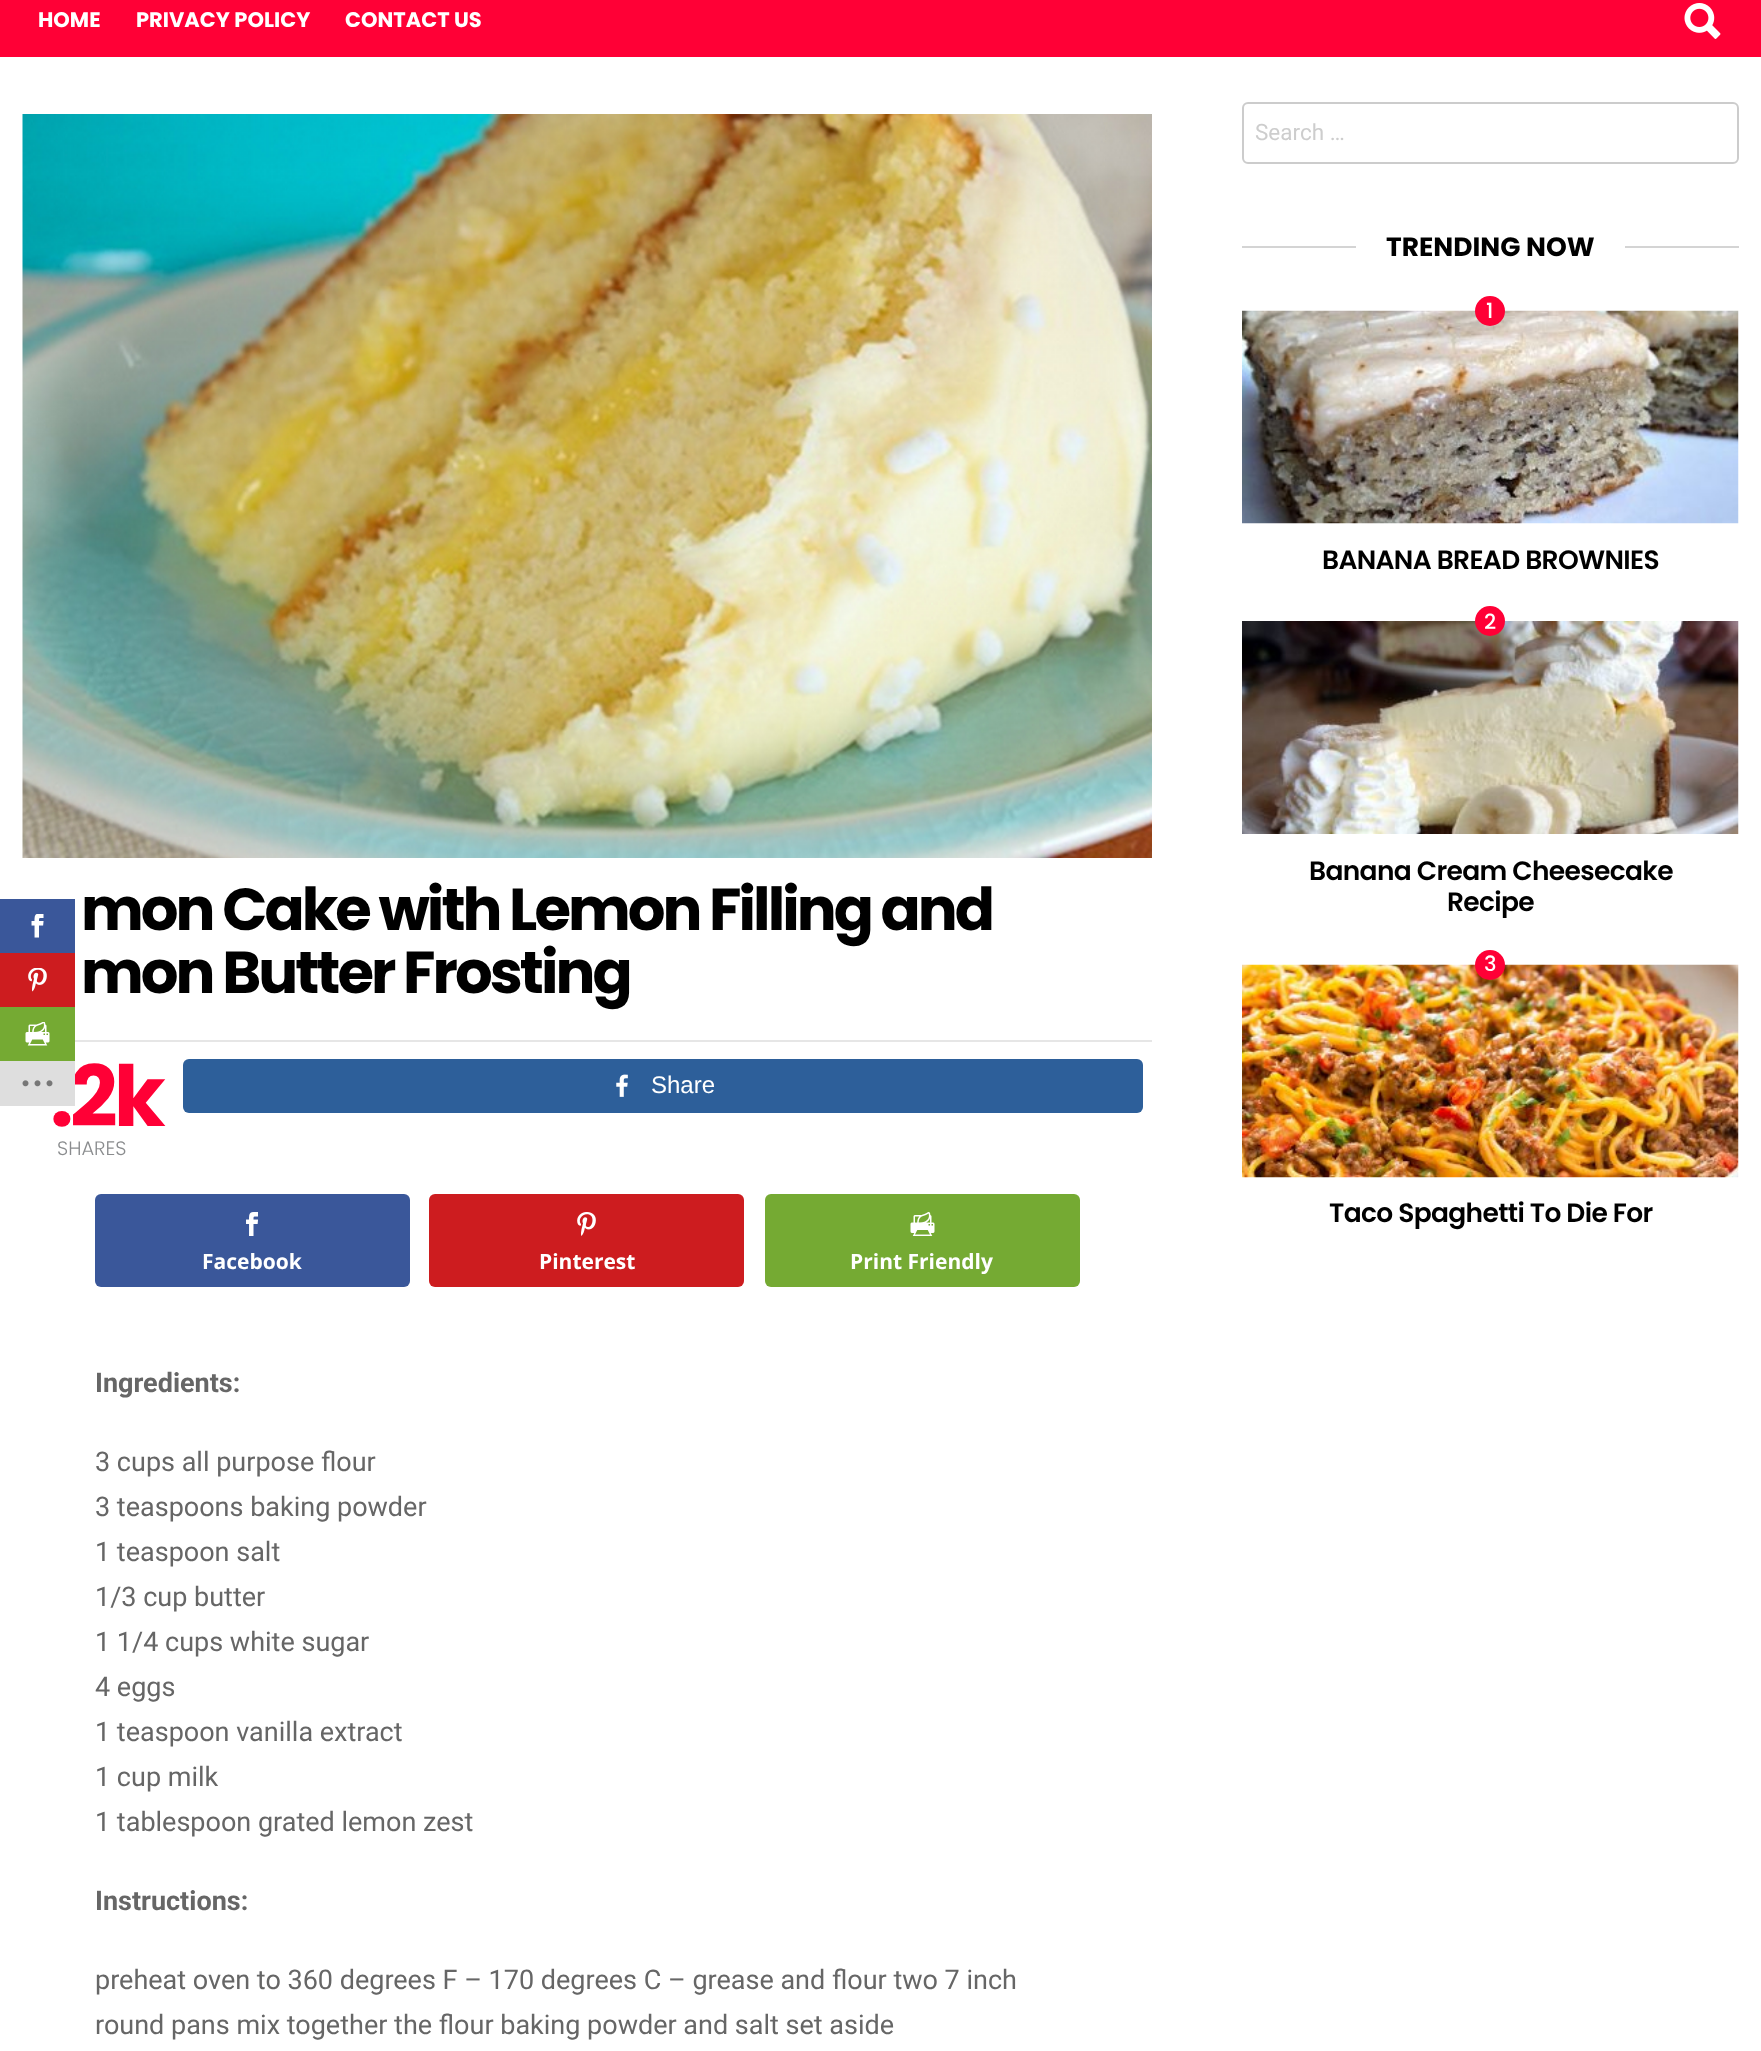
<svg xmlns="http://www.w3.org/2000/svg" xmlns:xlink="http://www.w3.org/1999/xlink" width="1761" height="2051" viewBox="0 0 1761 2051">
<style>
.cls-1{font:bold 21px Poppins;fill:#ffffff}
.cls-2{font:22.5px Roboto;fill:#cdcdcd}
.cls-3{font:bold 26.5px Poppins;fill:#000000}
.cls-4{font:500 21px Poppins;fill:#ffffff}
.cls-5{font:600 26.5px Poppins;letter-spacing:-0.65px;fill:#000000}
.cls-6{font:bold 59.25px Poppins;letter-spacing:-2.95px;fill:#000000}
.cls-7{font:bold 84px Poppins;letter-spacing:-4px;fill:#ff0036}
.cls-8{font:300 19.5px Poppins;fill:#8a8c8e}
.cls-9{font:24px Liberation Sans;fill:#ffffff}
.cls-10{font:bold 21px Open Sans;fill:#ffffff}
.cls-11{font:bold 27px Roboto;fill:#666666}
.cls-12{font:27px Roboto;fill:#666666}
</style>
<rect width="100%" height="100%" fill="#ffffff"/>
<rect fill="#3a579a" x="0" y="899" width="75" height="54"/>
<image xlink:href="image0.png" x="31" y="914" width="13" height="24"/>
<rect fill="#cd1c1f" x="0" y="953" width="75" height="54"/>
<image xlink:href="image1.png" x="28" y="968" width="19" height="24"/>
<rect fill="#75aa33" x="0" y="1007" width="75" height="54"/>
<image xlink:href="image2.png" x="25" y="1022" width="25" height="24"/>
<rect fill="#ff0036" x="0" y="0" width="1761" height="57"/>
<image xlink:href="image4.png" x="1684" y="3" width="37" height="36"/>
<rect fill="none" stroke="#cccccc" stroke-width="2" x="1243" y="103" width="495" height="60" rx="5"/>
<rect fill="#d4d4d4" x="1242" y="246" width="114" height="2"/>
<rect fill="#d4d4d4" x="1625" y="246" width="114" height="2"/>
<image xlink:href="image5.png" x="1242" y="310" width="497" height="214"/>
<circle fill="#ff0036" cx="1490" cy="311" r="15"/>
<image xlink:href="image6.png" x="1242" y="621" width="497" height="213"/>
<circle fill="#ff0036" cx="1490" cy="621" r="15"/>
<image xlink:href="image7.png" x="1242" y="964" width="497" height="214"/>
<circle fill="#ff0036" cx="1490" cy="965" r="15"/>
<image xlink:href="image8.png" x="22" y="114" width="1130" height="744"/>
<rect fill="#e6e6e6" x="75" y="1040" width="1077" height="2"/>
<rect fill="#2d5f9a" x="183" y="1059" width="960" height="54" rx="6"/>
<image xlink:href="image9.png" x="616" y="1074" width="12" height="23"/>
<rect fill="#3a579a" x="95" y="1194" width="315" height="93" rx="6"/>
<image xlink:href="image10.png" x="246" y="1212" width="12" height="24"/>
<rect fill="#cd1c1f" x="429" y="1194" width="315" height="93" rx="6"/>
<image xlink:href="image11.png" x="577" y="1212" width="19" height="24"/>
<rect fill="#75aa33" x="765" y="1194" width="315" height="93" rx="6"/>
<image xlink:href="image12.png" x="910" y="1212" width="25" height="24"/>
<text class="cls-1" x="38" y="27">HOME</text>
<text class="cls-1" x="136" y="27">PRIVACY POLICY</text>
<text class="cls-1" x="345" y="27">CONTACT US</text>
<text class="cls-2" x="1255" y="140">Search …</text>
<text class="cls-3" x="1386" y="256">TRENDING NOW</text>
<text class="cls-4" x="1486" y="318">1</text>
<text class="cls-5" x="1322" y="569">BANANA BREAD BROWNIES</text>
<text class="cls-4" x="1484" y="629">2</text>
<text class="cls-5" x="1309" y="880">Banana Cream Cheesecake</text>
<text class="cls-5" x="1447" y="911">Recipe</text>
<text class="cls-4" x="1484" y="971">3</text>
<text class="cls-5" x="1329" y="1222">Taco Spaghetti To Die For</text>
<text class="cls-6"><tspan x="81" y="930">mon Cake with Lemon Filling and</tspan><tspan x="81" y="993">mon Butter Frosting</tspan></text>
<text class="cls-7" x="50" y="1126">.2k</text>
<rect fill="#dedede" x="0" y="1061" width="75" height="45"/>
<image xlink:href="image3.png" x="22" y="1080" width="31" height="7"/>
<text class="cls-8" x="57" y="1155">SHARES</text>
<text class="cls-9" x="651" y="1093">Share</text>
<text class="cls-10" x="202" y="1269">Facebook</text>
<text class="cls-10" x="539" y="1269">Pinterest</text>
<text class="cls-10" x="850" y="1269">Print Friendly</text>
<text class="cls-11" x="95" y="1392">Ingredients:</text>
<text class="cls-12"><tspan x="95" y="1471">3 cups all purpose flour</tspan><tspan x="95" y="1516">3 teaspoons baking powder</tspan><tspan x="95" y="1561">1 teaspoon salt</tspan><tspan x="95" y="1606">1/3 cup butter</tspan><tspan x="95" y="1651">1 1/4 cups white sugar</tspan><tspan x="95" y="1696">4 eggs</tspan><tspan x="95" y="1741">1 teaspoon vanilla extract</tspan><tspan x="95" y="1786">1 cup milk</tspan><tspan x="95" y="1831">1 tablespoon grated lemon zest</tspan></text>
<text class="cls-11" x="95" y="1910">Instructions:</text>
<text class="cls-12"><tspan x="95" y="1989">preheat oven to 360 degrees F – 170 degrees C – grease and flour two 7 inch</tspan><tspan x="95" y="2034">round pans mix together the flour baking powder and salt set aside</tspan></text>
</svg>
